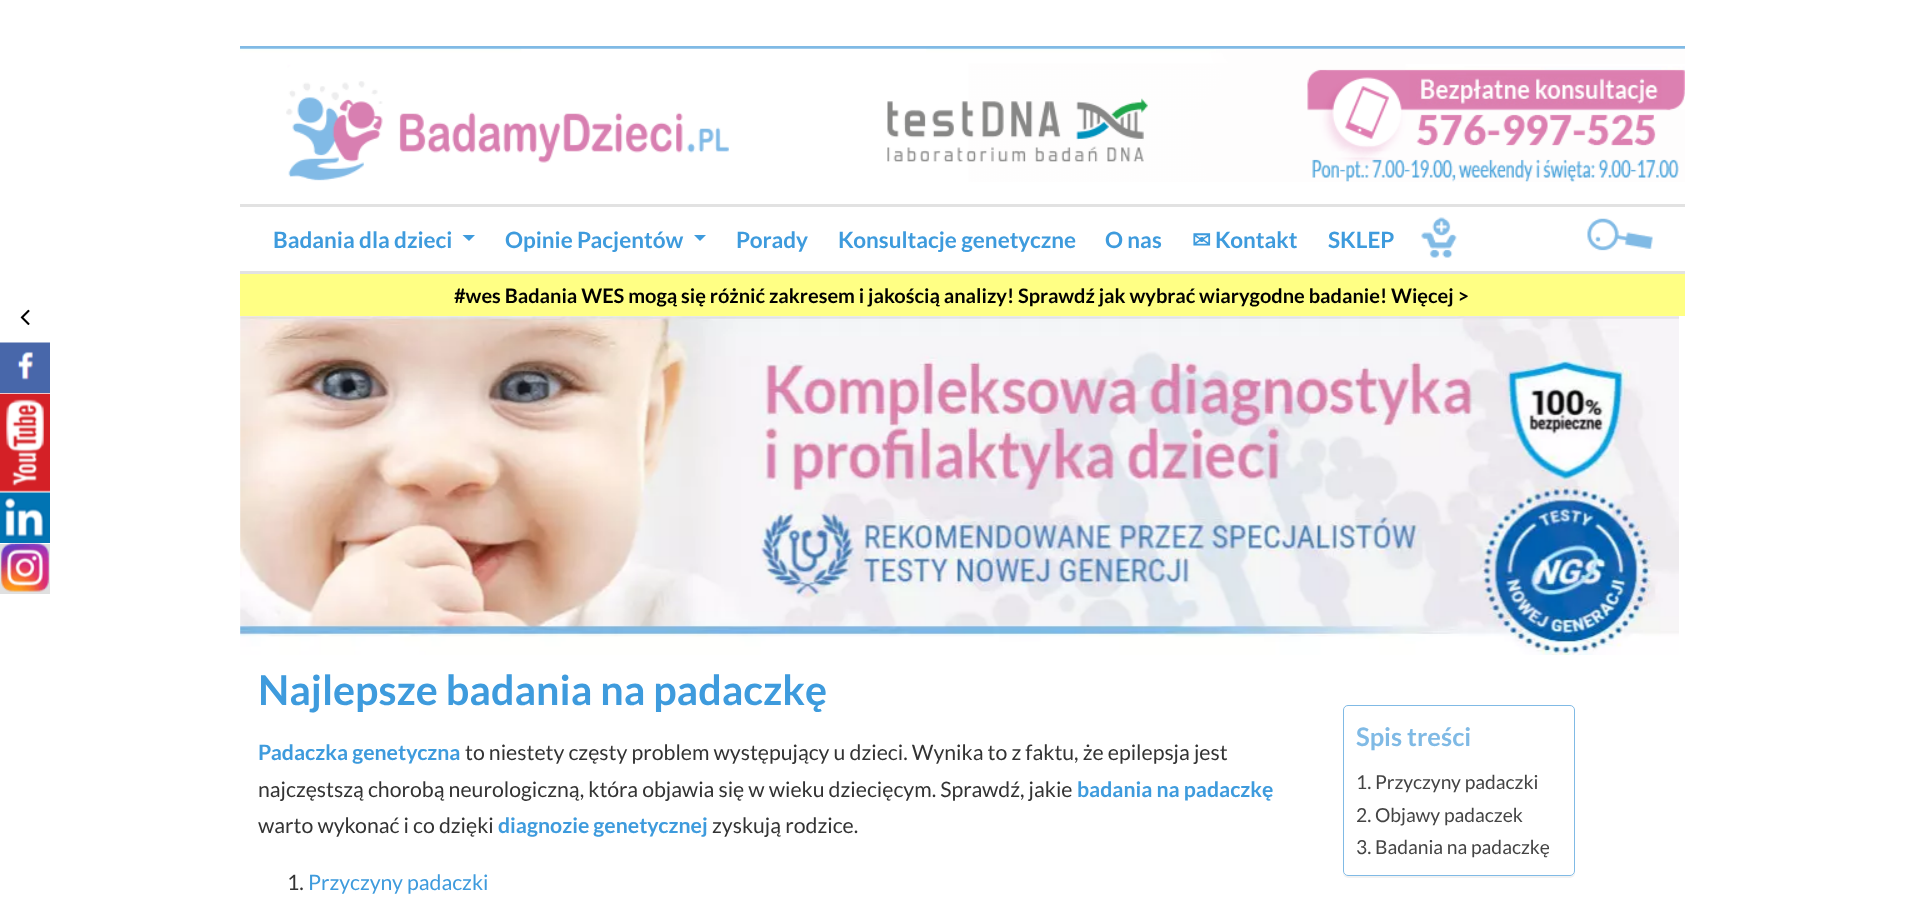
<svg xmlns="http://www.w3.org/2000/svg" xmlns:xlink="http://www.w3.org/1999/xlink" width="1923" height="917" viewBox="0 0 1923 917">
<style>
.cls-1{font:bold 22.5px Lato;fill:#3e9bdd}
.cls-2{font:bold 22.5px DejaVu Sans;fill:#3e9bdd}
.cls-3{font:bold 20px Lato;fill:#000000}
.cls-4{font:bold 41.25px Lato;fill:#3e9bdd}
.cls-5{font:bold 21.25px Lato;fill:#3e9bdd}
.cls-6{font:21.25px Lato;fill:#333333}
.cls-7{font:21.25px Lato;fill:#3e9bdd}
.cls-8{font:bold 25.5px Lato;fill:#80bae5}
.cls-9{font:19.25px Lato;fill:#444444}
</style>
<defs>
<clipPath id="clip1"><path d="M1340 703H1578V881H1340ZM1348 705H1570C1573 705 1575 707 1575 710V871C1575 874 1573 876 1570 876H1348C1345 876 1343 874 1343 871V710C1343 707 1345 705 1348 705Z" clip-rule="evenodd"/></clipPath>
</defs>
<rect width="100%" height="100%" fill="#ffffff"/>
<rect fill="#80bae5" x="240" y="46" width="1445" height="3"/>
<image xlink:href="image0.png" x="240" y="48" width="1445" height="134"/>
<rect fill="#e2e2e2" x="240" y="204" width="1445" height="3"/>
<rect fill="#e2e2e2" x="240" y="271" width="1445" height="3"/>
<path fill="#3e9bdd" d="M462.5 235H475L469 241Z"/>
<path fill="#3e9bdd" d="M694 235H706L700 241Z"/>
<image xlink:href="image1.png" x="1421" y="217" width="36" height="41"/>
<image xlink:href="image2.png" x="1587" y="218" width="66" height="33"/>
<rect fill="#ffff84" x="240" y="274" width="1445" height="42"/>
<image xlink:href="image3.png" x="20" y="309" width="10" height="16"/>
<rect fill="#4867aa" x="0" y="380" width="50" height="13"/>
<image xlink:href="image4.png" x="0" y="342" width="50" height="38"/>
<image xlink:href="image5.png" x="0" y="393" width="50" height="99"/>
<rect fill="#0274b3" x="0" y="538" width="50" height="5"/>
<image xlink:href="image6.png" x="0" y="492" width="50" height="46"/>
<rect fill="#e0e0e0" x="0" y="544" width="50" height="50"/>
<image xlink:href="image7.png" x="1" y="543" width="48" height="49"/>
<image xlink:href="image8.png" x="240" y="316" width="1439" height="339"/>
<g clip-path="url(#clip1)">
<rect fill="#000000" fill-opacity="0.05" filter="blur(0.5px)" x="1343" y="706" width="232" height="172" rx="5"/>
</g>
<rect fill="none" stroke="#80bae5" x="1343.5" y="705.5" width="231" height="170" rx="4.5"/>
<text class="cls-1" x="273" y="248">Badania dla dzieci</text>
<text class="cls-1" x="505" y="248">Opinie Pacjentów</text>
<text class="cls-1" x="736" y="248">Porady</text>
<text class="cls-1" x="838" y="248">Konsultacje genetyczne</text>
<text class="cls-1" x="1105" y="248">O nas</text>
<text class="cls-2" x="1192" y="248">✉</text>
<text class="cls-1" x="1215" y="248">Kontakt</text>
<text class="cls-1" x="1328" y="248">SKLEP</text>
<text class="cls-3" x="454" y="303">#wes Badania WES mogą się różnić zakresem i jakością analizy! Sprawdź jak wybrać wiarygodne badanie! Więcej &gt;</text>
<text class="cls-4" x="258" y="705">Najlepsze badania na padaczkę</text>
<text class="cls-5" x="258" y="760">Padaczka genetyczna</text>
<text class="cls-6" x="465" y="760">to niestety częsty problem występujący u dzieci. Wynika to z faktu, że epilepsja jest</text>
<text class="cls-6" x="258" y="797">najczęstszą chorobą neurologiczną, która objawia się w wieku dziecięcym. Sprawdź, jakie</text>
<text class="cls-5" x="1077" y="797">badania na padaczkę</text>
<text class="cls-6" x="258" y="833">warto wykonać i co dzięki</text>
<text class="cls-5" x="498" y="833">diagnozie genetycznej</text>
<text class="cls-6" x="712" y="833">zyskują rodzice.</text>
<text class="cls-6" x="287" y="890">1.</text>
<text class="cls-7" x="308" y="890">Przyczyny padaczki</text>
<text class="cls-8" x="1356" y="746">Spis treści</text>
<text class="cls-9"><tspan x="1356" y="789">1. Przyczyny padaczki</tspan><tspan x="1356" y="822">2. Objawy padaczek</tspan><tspan x="1356" y="854">3. Badania na padaczkę</tspan></text>
</svg>
